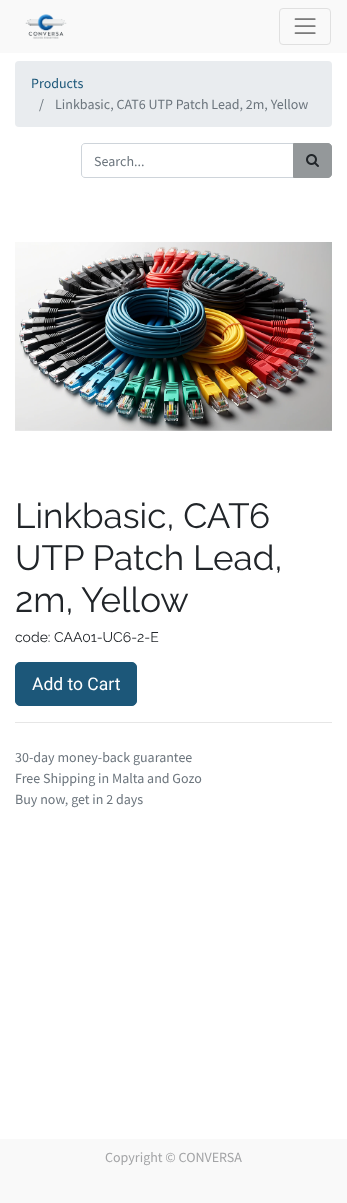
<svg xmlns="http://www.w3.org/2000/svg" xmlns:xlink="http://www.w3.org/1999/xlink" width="347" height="1203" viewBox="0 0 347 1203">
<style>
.cls-1{font:14px Source Sans Pro;fill:#1c5779}
.cls-2{font:14px Source Sans Pro;fill:#6c757d}
.cls-3{font:35px Raleway;fill:#212529}
.cls-4{font:14px Raleway;fill:#212529}
.cls-5{font:17.5px Roboto;fill:#ffffff}
.cls-6{font:14px Source Sans Pro;fill:#a3a4a6}
</style>
<rect width="100%" height="100%" fill="#ffffff"/>
<rect fill="#f9f9f9" x="0" y="0" width="347" height="53"/>
<image xlink:href="image0.png" x="25" y="14" width="42" height="25"/>
<rect fill="none" stroke="#e0e0e0" x="279.5" y="8.5" width="51" height="36" rx="3.5"/>
<image xlink:href="image1.png" x="294" y="18" width="22" height="16"/>
<rect fill="#e9ecef" x="15" y="61" width="317" height="66" rx="4"/>
<path fill="none" stroke="#ced4da" d="M85 143.5H293.5V177.5H85C83 177.5 81.5 176 81.5 174V147C81.5 145 83 143.5 85 143.5Z"/>
<path fill="#94989a" stroke="#94989a" d="M293.5 143.5H328C330 143.5 331.5 145 331.5 147V174C331.5 176 330 177.5 328 177.5H293.5Z"/>
<image xlink:href="image2.png" x="306" y="154" width="13" height="13"/>
<image xlink:href="image3.png" x="15" y="242" width="317" height="189"/>
<rect fill="#1c5779" stroke="#1c5779" x="15.5" y="662.5" width="121" height="43" rx="4.5"/>
<rect fill="#e6e6e6" x="15" y="722" width="317" height="1"/>
<rect fill="#f9f9f9" x="0" y="1139" width="347" height="64"/>
<text class="cls-1" x="31" y="88">Products</text>
<text class="cls-2" x="39" y="109">/</text>
<text class="cls-2" x="55" y="109">Linkbasic, CAT6 UTP Patch Lead, 2m, Yellow</text>
<text class="cls-2" x="94" y="166">Search...</text>
<text class="cls-3"><tspan x="15" y="528">Linkbasic, CAT6</tspan><tspan x="15" y="570">UTP Patch Lead,</tspan><tspan x="15" y="612">2m, Yellow</tspan></text>
<text class="cls-4" x="15" y="642">code: CAA01-UC6-2-E</text>
<text class="cls-5" x="32" y="690">Add to Cart</text>
<text class="cls-2"><tspan x="15" y="762">30-day money-back guarantee</tspan><tspan x="15" y="783">Free Shipping in Malta and Gozo</tspan><tspan x="15" y="804">Buy now, get in 2 days</tspan></text>
<text class="cls-6" x="105" y="1162">Copyright © CONVERSA</text>
</svg>
